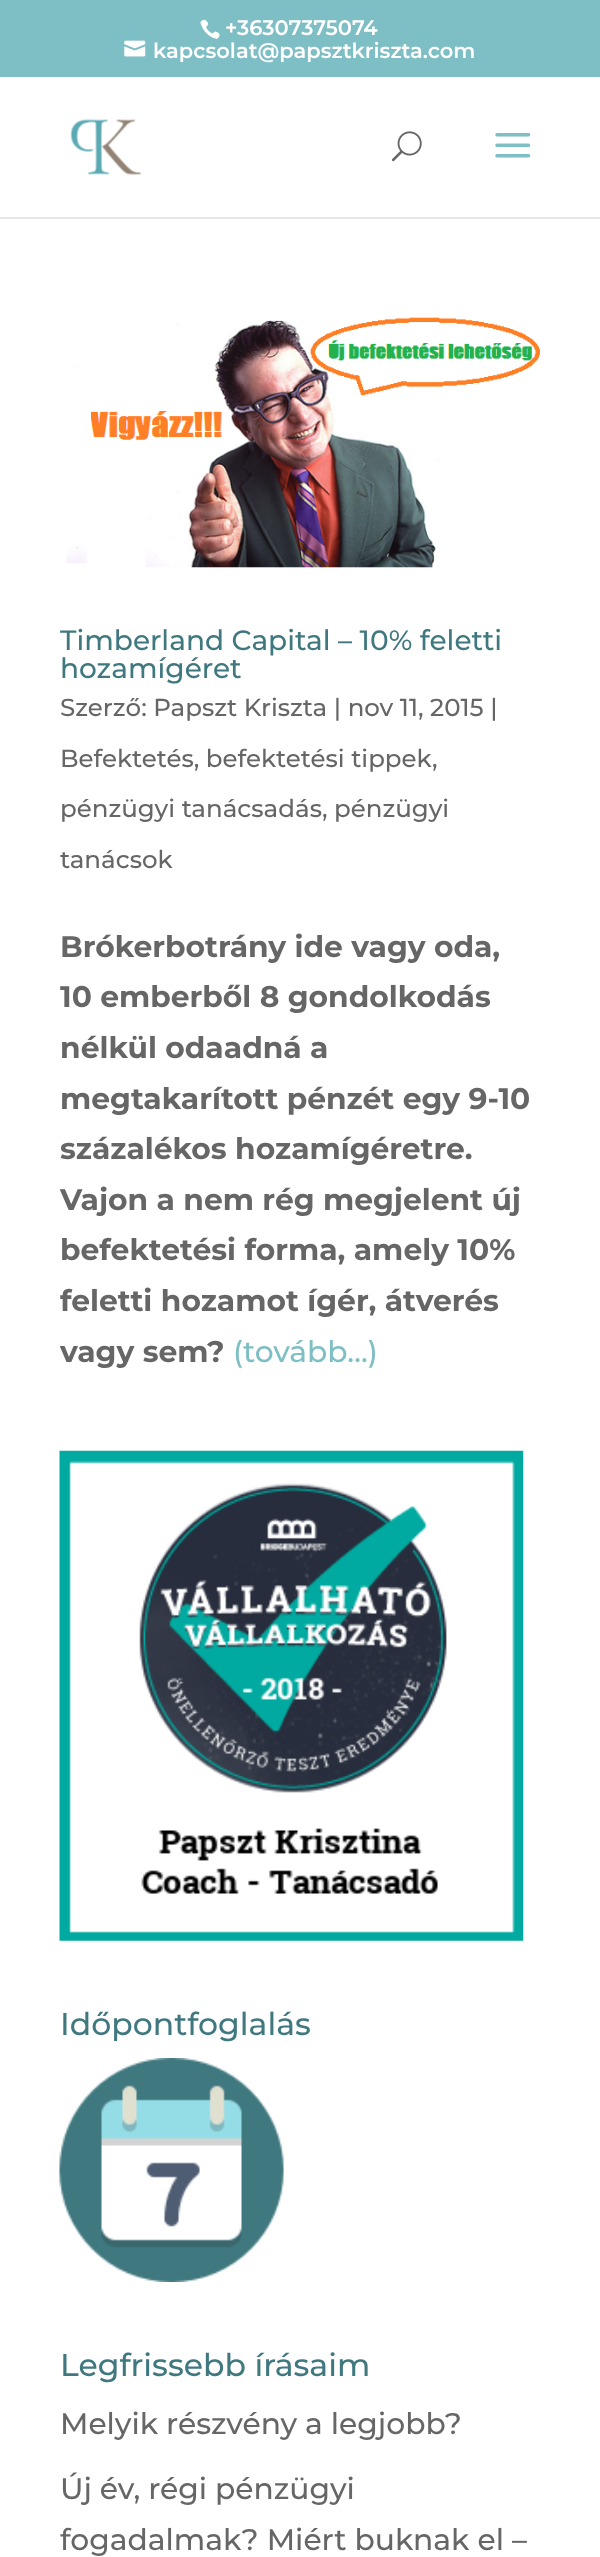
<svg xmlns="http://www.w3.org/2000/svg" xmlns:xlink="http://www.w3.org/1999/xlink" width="600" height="2557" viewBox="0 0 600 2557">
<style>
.cls-1{font:600 21px Montserrat;fill:#ffffff}
.cls-2{font:500 28px Montserrat;fill:#407880}
.cls-3{font:500 24.5px Montserrat;fill:#666666}
.cls-4{font:bold 29.75px Montserrat;fill:#666666}
.cls-5{font:500 29.75px Montserrat;fill:#7ebec5}
.cls-6{font:500 31.5px Montserrat;fill:#407880}
.cls-7{font:500 29.75px Montserrat;fill:#666666}
</style>
<rect width="100%" height="100%" fill="#ffffff"/>
<rect fill="#7ebec5" x="0" y="0" width="600" height="77"/>
<image xlink:href="image0.png" x="200" y="19" width="20" height="20"/>
<image xlink:href="image1.png" x="124" y="40" width="22" height="17"/>
<rect fill="#e6e6e6" x="0" y="217" width="600" height="2"/>
<image xlink:href="image2.png" x="70" y="119" width="71" height="56"/>
<image xlink:href="image3.png" x="391" y="131" width="31" height="31"/>
<image xlink:href="image4.png" x="495" y="133" width="36" height="25"/>
<image xlink:href="image5.png" x="66" y="317" width="474" height="251"/>
<image xlink:href="image6.png" x="59" y="1450" width="465" height="491"/>
<image xlink:href="image7.png" x="59" y="2058" width="225" height="224"/>
<text class="cls-1" x="225" y="35">+36307375074</text>
<text class="cls-1" x="153" y="58">kapcsolat@papsztkriszta.com</text>
<text class="cls-2"><tspan x="60" y="650">Timberland Capital – 10% feletti</tspan><tspan x="60" y="678">hozamígéret</tspan></text>
<text class="cls-3" x="60" y="716">Szerző: Papszt Kriszta | nov 11, 2015 |</text>
<text class="cls-3" x="60" y="767">Befektetés, befektetési tippek,</text>
<text class="cls-3" x="60" y="817">pénzügyi tanácsadás, pénzügyi</text>
<text class="cls-3" x="60" y="868">tanácsok</text>
<text class="cls-4"><tspan x="60" y="957">Brókerbotrány ide vagy oda,</tspan><tspan x="60" y="1007">10 emberből 8 gondolkodás</tspan><tspan x="60" y="1058">nélkül odaadná a</tspan><tspan x="60" y="1109">megtakarított pénzét egy 9-10</tspan><tspan x="60" y="1159">százalékos hozamígéretre.</tspan><tspan x="60" y="1210">Vajon a nem rég megjelent új</tspan><tspan x="60" y="1260">befektetési forma, amely 10%</tspan><tspan x="60" y="1311">feletti hozamot ígér, átverés</tspan><tspan x="60" y="1362">vagy sem?</tspan></text>
<text class="cls-5" x="233" y="1362">(tovább…)</text>
<text class="cls-6" x="60" y="2035">Időpontfoglalás</text>
<text class="cls-6" x="60" y="2376">Legfrissebb írásaim</text>
<text class="cls-7" x="60" y="2434">Melyik részvény a legjobb?</text>
<text class="cls-7"><tspan x="60" y="2499">Új év, régi pénzügyi</tspan><tspan x="60" y="2550">fogadalmak? Miért buknak el –</tspan></text>
</svg>
